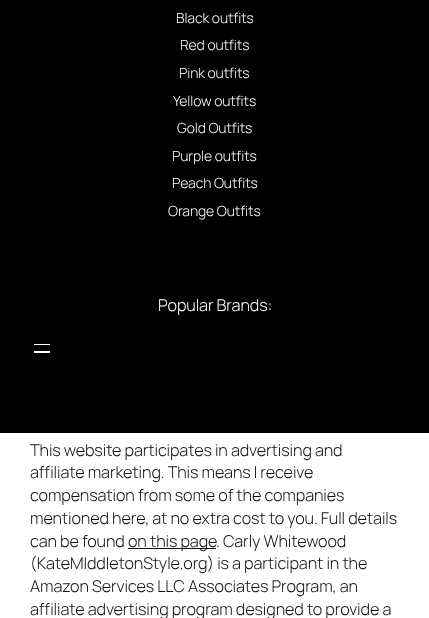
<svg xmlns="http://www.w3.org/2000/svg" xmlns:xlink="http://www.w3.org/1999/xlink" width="429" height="618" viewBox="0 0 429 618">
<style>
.cls-1{font:300 14px Manrope;letter-spacing:-0.1px;fill:#ffffff}
.cls-2{font:300 16.25px Manrope;letter-spacing:-0.1px;fill:#ffffff}
.cls-3{font:300 16.25px Manrope;letter-spacing:-0.1px;fill:#111111}
</style>
<rect width="100%" height="100%" fill="#ffffff"/>
<rect fill="#000000" x="0" y="0" width="429" height="433"/>
<rect fill="#ffffff" x="34" y="344" width="16" height="1"/>
<rect fill="#ffffff" x="34" y="351" width="16" height="2"/>
<rect fill="#111111" x="128" y="548" width="88" height="1"/>
<text class="cls-1" x="176" y="23">Black outfits</text>
<text class="cls-1" x="180" y="50">Red outfits</text>
<text class="cls-1" x="179" y="78">Pink outfits</text>
<text class="cls-1" x="173" y="106">Yellow outfits</text>
<text class="cls-1" x="177" y="133">Gold Outfits</text>
<text class="cls-1"><tspan x="172" y="161">Purple outfits</tspan><tspan x="172" y="188">Peach Outfits</tspan></text>
<text class="cls-1" x="168" y="216">Orange Outfits</text>
<text class="cls-2" x="158" y="311">Popular Brands:</text>
<text class="cls-3"><tspan x="30" y="456">This website participates in advertising and</tspan><tspan x="30" y="478">affiliate marketing. This means I receive</tspan><tspan x="30" y="501">compensation from some of the companies</tspan><tspan x="30" y="524">mentioned here, at no extra cost to you. Full details</tspan><tspan x="30" y="547">can be found</tspan></text>
<text class="cls-3" x="128" y="547">on this page</text>
<text class="cls-3" x="216" y="547">. Carly Whitewood</text>
<text class="cls-3"><tspan x="30" y="569">(KateMIddletonStyle.org) is a participant in the</tspan><tspan x="30" y="592">Amazon Services LLC Associates Program, an</tspan><tspan x="30" y="615">affiliate advertising program designed to provide a</tspan></text>
</svg>
